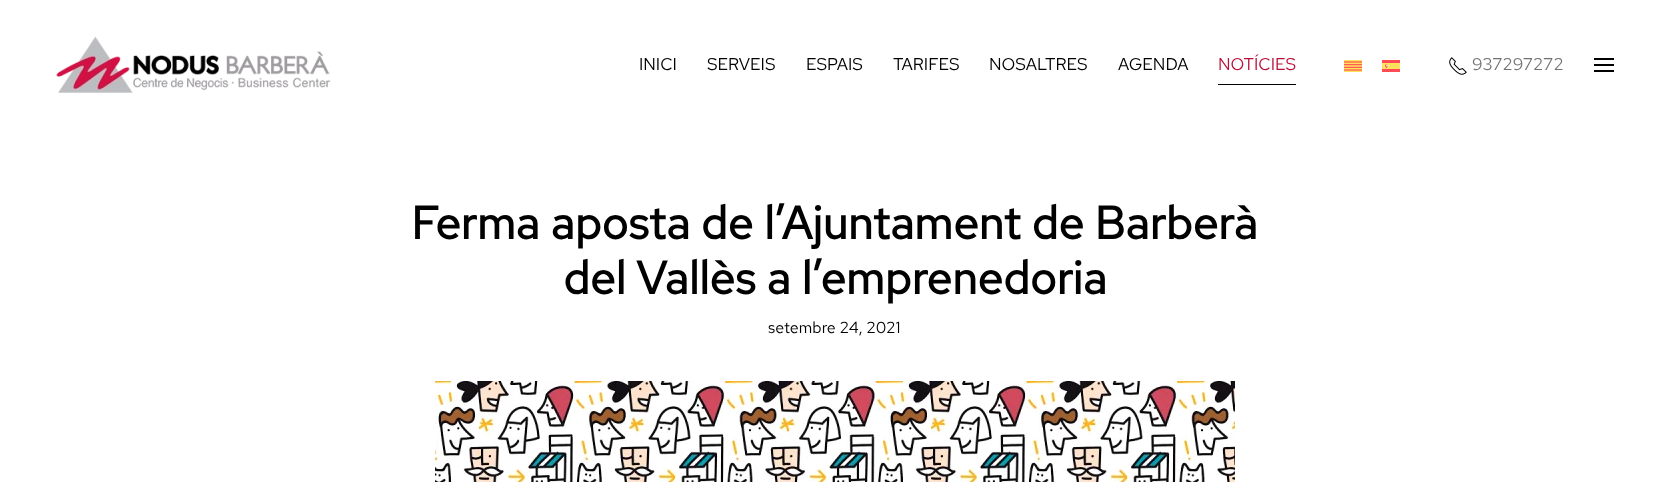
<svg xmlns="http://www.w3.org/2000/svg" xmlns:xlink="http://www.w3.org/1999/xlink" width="1669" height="482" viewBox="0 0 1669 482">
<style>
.cls-1{font:17px Red Hat Text;fill:#000000}
.cls-2{font:17px Red Hat Text;fill:#b9103b}
.cls-3{font:17px Red Hat Text;fill:#727272}
.cls-4{font:bold 46px Red Hat Text;fill:#000000}
.cls-5{font:16px Red Hat Text;fill:#000000}
</style>
<rect width="100%" height="100%" fill="#ffffff"/>
<image xlink:href="image0.png" x="56" y="36" width="275" height="57"/>
<rect fill="#000000" x="1218" y="84" width="78" height="1"/>
<image xlink:href="image1.png" x="1344" y="60" width="18" height="12"/>
<image xlink:href="image2.png" x="1382" y="60" width="18" height="12"/>
<image xlink:href="image3.png" x="1449" y="57" width="18" height="18"/>
<rect fill="#000000" x="1594" y="58" width="20" height="2"/>
<rect fill="#000000" x="1594" y="64" width="20" height="2"/>
<rect fill="#000000" x="1594" y="70" width="20" height="2"/>
<image xlink:href="image4.png" x="435" y="381" width="800" height="101"/>
<text class="cls-1" x="639" y="70">INICI</text>
<text class="cls-1" x="707" y="70">SERVEIS</text>
<text class="cls-1" x="806" y="70">ESPAIS</text>
<text class="cls-1" x="893" y="70">TARIFES</text>
<text class="cls-1" x="989" y="70">NOSALTRES</text>
<text class="cls-1" x="1118" y="70">AGENDA</text>
<text class="cls-2" x="1218" y="70">NOTÍCIES</text>
<text class="cls-3" x="1472" y="70">937297272</text>
<text class="cls-4" x="411" y="239">Ferma aposta de l’Ajuntament de Barberà</text>
<text class="cls-4" x="563" y="294">del Vallès a l’emprenedoria</text>
<text class="cls-5" x="768" y="333">setembre 24, 2021</text>
</svg>
